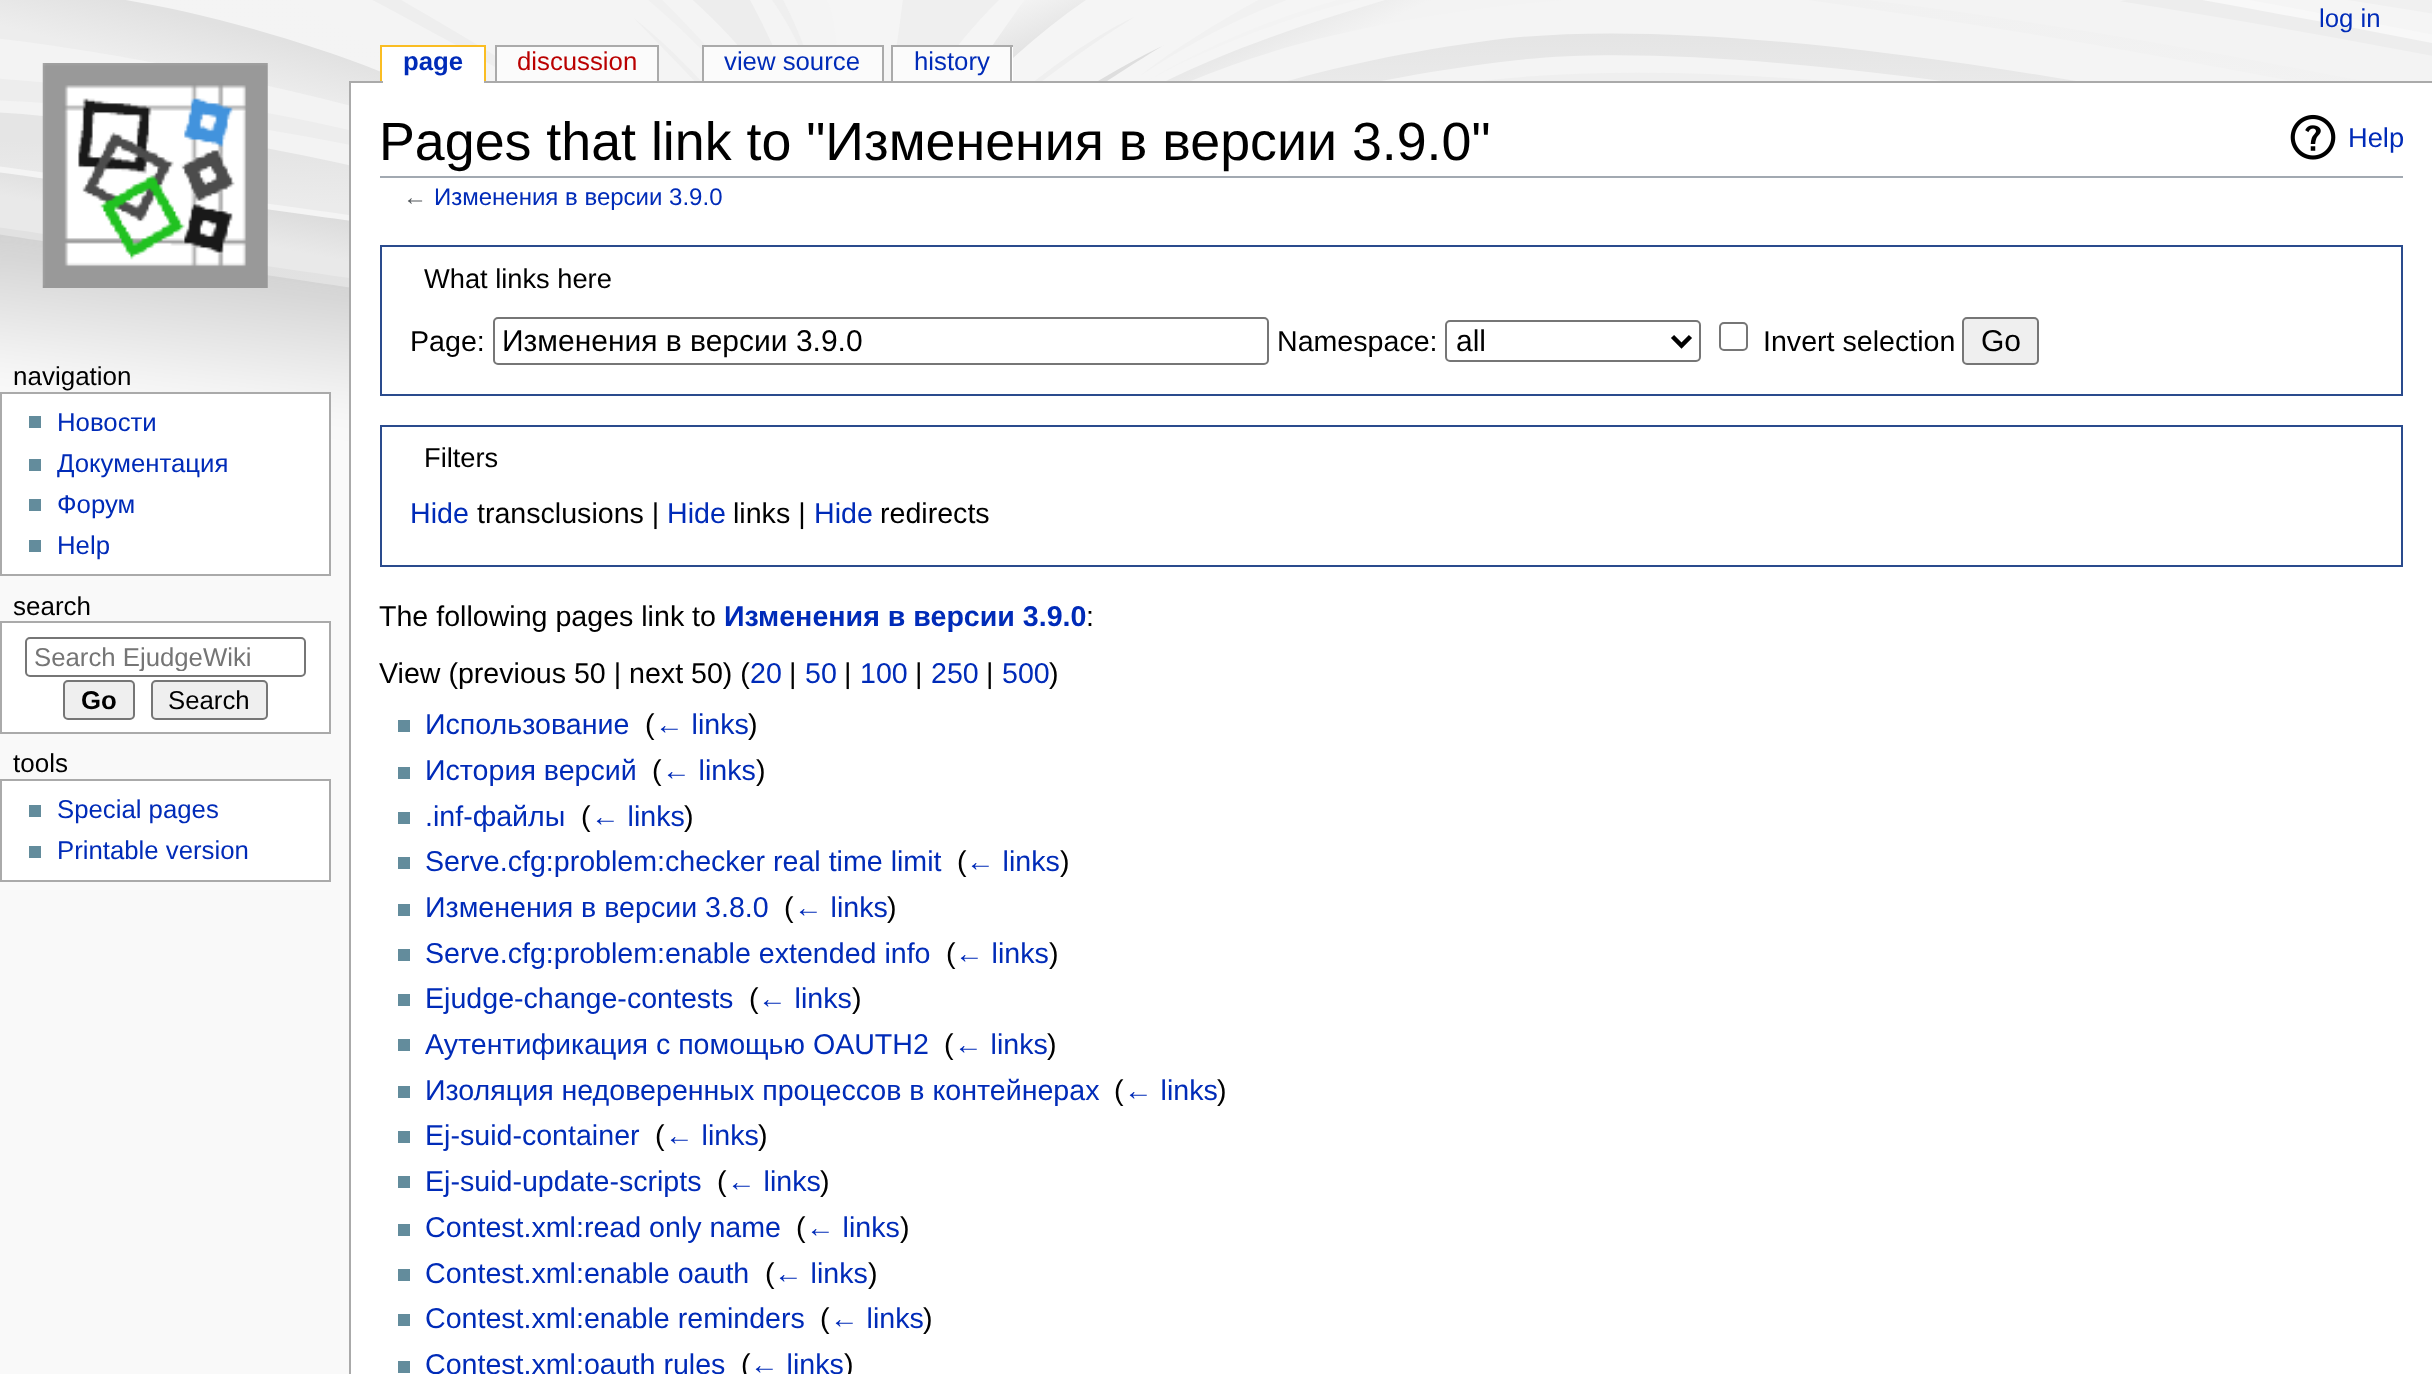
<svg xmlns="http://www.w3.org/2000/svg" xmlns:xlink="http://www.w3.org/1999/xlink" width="2432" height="1374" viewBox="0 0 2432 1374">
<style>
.cls-1{font:25.75px Liberation Sans;fill:#002bb8}
.cls-2{font:bold 25.75px Liberation Sans;fill:#002bb8}
.cls-3{font:25.75px Liberation Sans;fill:#ba0000}
.cls-4{font:26px Liberation Sans;fill:#000000}
.cls-5{font:25.75px Liberation Sans;fill:#757575}
.cls-6{font:bold 25.75px Liberation Sans;fill:#000000}
.cls-7{font:25.75px Liberation Sans;fill:#000000}
.cls-8{font:53.75px Liberation Sans;fill:#000000}
.cls-9{font:27.25px Liberation Sans;fill:#002bb8}
.cls-10{font:24px Liberation Sans;fill:#54595d}
.cls-11{font:24px Liberation Sans;fill:#002bb8}
.cls-12{font:27.25px Liberation Sans;fill:#000000}
.cls-13{font:28.6px Liberation Sans;fill:#000000}
.cls-14{font:30px Liberation Sans;fill:#000000}
.cls-15{font:28.6px Liberation Sans;fill:#002bb8}
.cls-16{font:bold 28.6px Liberation Sans;fill:#002bb8}
</style>
<defs>
<clipPath id="clip1"><rect x="34" y="644" width="236" height="27"/></clipPath>
</defs>
<rect width="100%" height="100%" fill="#f9f9f9"/>
<image xlink:href="image0.png" x="0" y="0" width="2432" height="471"/>
<image xlink:href="image1.png" x="42" y="63" width="226" height="225"/>
<rect fill="#ffffff" x="382" y="47" width="1" height="34"/>
<rect fill="#fabd23" x="380" y="45" width="106" height="2"/>
<rect fill="#fabd23" x="484" y="45" width="2" height="36"/>
<rect fill="#fabd23" x="380" y="45" width="2" height="36"/>
<rect fill="#aaaaaa" x="349" y="81" width="2083" height="2"/>
<rect fill="#ffffff" x="383" y="47" width="101" height="36"/>
<rect fill="#aaaaaa" x="495" y="45" width="164" height="2"/>
<rect fill="#aaaaaa" x="657" y="45" width="2" height="36"/>
<rect fill="#aaaaaa" x="495" y="45" width="2" height="36"/>
<rect fill="#fbfbfb" x="497" y="47" width="160" height="34"/>
<rect fill="#aaaaaa" x="702" y="45" width="182" height="2"/>
<rect fill="#aaaaaa" x="882" y="45" width="2" height="36"/>
<rect fill="#aaaaaa" x="702" y="45" width="2" height="36"/>
<rect fill="#fbfbfb" x="704" y="47" width="178" height="34"/>
<rect fill="#ffffff" x="1012" y="47" width="1" height="34"/>
<rect fill="#aaaaaa" x="891" y="45" width="122" height="2"/>
<rect fill="#aaaaaa" x="1010" y="45" width="2" height="36"/>
<rect fill="#aaaaaa" x="891" y="45" width="2" height="36"/>
<rect fill="#fbfbfb" x="893" y="47" width="117" height="34"/>
<rect fill="#ffffff" stroke="#aaaaaa" stroke-width="2" x="1" y="393" width="329" height="182"/>
<rect fill="#638c9c" x="29" y="416" width="12" height="12"/>
<rect fill="#638c9c" x="29" y="459" width="12" height="12"/>
<rect fill="#638c9c" x="29" y="499" width="12" height="12"/>
<rect fill="#638c9c" x="29" y="540" width="12" height="12"/>
<rect fill="#ffffff" stroke="#aaaaaa" stroke-width="2" x="1" y="622" width="329" height="111"/>
<rect fill="none" stroke="#767676" stroke-width="2" x="26" y="638" width="279" height="38" rx="4"/>
<rect fill="#efefef" stroke="#767676" stroke-width="2" x="64" y="681" width="70" height="38" rx="4"/>
<rect fill="#efefef" stroke="#767676" stroke-width="2" x="152" y="681" width="115" height="38" rx="4"/>
<rect fill="#ffffff" stroke="#aaaaaa" stroke-width="2" x="1" y="780" width="329" height="101"/>
<rect fill="#638c9c" x="29" y="805" width="12" height="12"/>
<rect fill="#638c9c" x="29" y="846" width="12" height="12"/>
<rect fill="#ffffff" x="351" y="83" width="2081" height="1291"/>
<rect fill="#aaaaaa" x="349" y="81" width="2" height="1293"/>
<rect fill="#a2a9b1" x="380" y="176" width="2023" height="2"/>
<image xlink:href="image2.png" x="2290" y="114" width="46" height="46"/>
<rect fill="none" stroke="#2a4b8d" stroke-width="2" x="381" y="246" width="2021" height="149"/>
<rect fill="none" stroke="#767676" stroke-width="2" x="494" y="318" width="774" height="46" rx="4"/>
<rect fill="none" stroke="#767676" stroke-width="2" x="1446" y="321" width="254" height="40" rx="4"/>
<path fill="none" stroke="#000000" stroke-width="4.5" d="M1672.5 336.5L1681.5 345.5L1690.5 336.5"/>
<rect fill="none" stroke="#767676" stroke-width="2" x="1720" y="323" width="27" height="27" rx="4"/>
<rect fill="#efefef" stroke="#767676" stroke-width="2" x="1963" y="318" width="75" height="46" rx="4"/>
<rect fill="none" stroke="#2a4b8d" stroke-width="2" x="381" y="426" width="2021" height="140"/>
<rect fill="#638c9c" x="398" y="720" width="12" height="12"/>
<rect fill="#638c9c" x="398" y="767" width="12" height="12"/>
<rect fill="#638c9c" x="398" y="812" width="12" height="12"/>
<rect fill="#638c9c" x="398" y="857" width="12" height="12"/>
<rect fill="#638c9c" x="398" y="904" width="12" height="12"/>
<rect fill="#638c9c" x="398" y="949" width="12" height="12"/>
<rect fill="#638c9c" x="398" y="994" width="12" height="12"/>
<rect fill="#638c9c" x="398" y="1039" width="12" height="12"/>
<rect fill="#638c9c" x="398" y="1086" width="12" height="12"/>
<rect fill="#638c9c" x="398" y="1131" width="12" height="12"/>
<rect fill="#638c9c" x="398" y="1176" width="12" height="12"/>
<rect fill="#638c9c" x="398" y="1224" width="12" height="12"/>
<rect fill="#638c9c" x="398" y="1269" width="12" height="12"/>
<rect fill="#638c9c" x="398" y="1314" width="12" height="12"/>
<rect fill="#638c9c" x="398" y="1361" width="12" height="12"/>
<text class="cls-1" x="2319" y="27">log in</text>
<text class="cls-2" x="403" y="70">page</text>
<text class="cls-3" x="517" y="70">discussion</text>
<text class="cls-1" x="724" y="70">view source</text>
<text class="cls-1" x="914" y="70">history</text>
<text class="cls-4" x="13" y="385">navigation</text>
<text class="cls-1"><tspan x="57" y="431">Новости</tspan><tspan x="57" y="472">Документация</tspan><tspan x="57" y="513">Форум</tspan><tspan x="57" y="554">Help</tspan></text>
<text class="cls-4" x="13" y="615">search</text>
<g clip-path="url(#clip1)">
<text class="cls-5" x="34" y="666">Search EjudgeWiki</text>
</g>
<text class="cls-6" x="81" y="709">Go</text>
<text class="cls-7" x="168" y="709">Search</text>
<text class="cls-4" x="13" y="772">tools</text>
<text class="cls-1"><tspan x="57" y="818">Special pages</tspan><tspan x="57" y="859">Printable version</tspan></text>
<text class="cls-8" x="379" y="160">Pages that link to "Изменения в версии 3.9.0"</text>
<text class="cls-9" x="2348" y="147">Help</text>
<text class="cls-10" x="403" y="205">←</text>
<text class="cls-11" x="434" y="205">Изменения в версии 3.9.0</text>
<text class="cls-12" x="424" y="288">What links here</text>
<text class="cls-13" x="410" y="351">Page:</text>
<text class="cls-14" x="502" y="351">Изменения в версии 3.9.0</text>
<text class="cls-13" x="1277" y="351">Namespace:</text>
<text class="cls-14" x="1456" y="351">all</text>
<text class="cls-13" x="1763" y="351">Invert selection</text>
<text class="cls-14" x="1981" y="351">Go</text>
<text class="cls-12" x="424" y="467">Filters</text>
<text class="cls-15" x="410" y="523">Hide</text>
<text class="cls-13" x="477" y="523">transclusions |</text>
<text class="cls-15" x="667" y="523">Hide</text>
<text class="cls-13" x="733" y="523">links |</text>
<text class="cls-15" x="814" y="523">Hide</text>
<text class="cls-13" x="880" y="523">redirects</text>
<text class="cls-13" x="379" y="626">The following pages link to</text>
<text class="cls-16" x="724" y="626">Изменения в версии 3.9.0</text>
<text class="cls-13" x="1086" y="626">:</text>
<text class="cls-13" x="379" y="683">View (previous 50 | next 50) (</text>
<text class="cls-15" x="750" y="683">20</text>
<text class="cls-13" x="789" y="683">|</text>
<text class="cls-15" x="805" y="683">50</text>
<text class="cls-13" x="844" y="683">|</text>
<text class="cls-15" x="860" y="683">100</text>
<text class="cls-13" x="915" y="683">|</text>
<text class="cls-15" x="931" y="683">250</text>
<text class="cls-13" x="986" y="683">|</text>
<text class="cls-15" x="1002" y="683">500</text>
<text class="cls-13" x="1049" y="683">)</text>
<text class="cls-15" x="425" y="734">Использование</text>
<text class="cls-13" x="645" y="734">(</text>
<text class="cls-15" x="655" y="734">← links</text>
<text class="cls-13" x="748" y="734">)</text>
<text class="cls-15" x="425" y="780">История версий</text>
<text class="cls-13" x="652" y="780">(</text>
<text class="cls-15" x="662" y="780">← links</text>
<text class="cls-13" x="756" y="780">)</text>
<text class="cls-15" x="425" y="826">.inf-файлы</text>
<text class="cls-13" x="581" y="826">(</text>
<text class="cls-15" x="591" y="826">← links</text>
<text class="cls-13" x="684" y="826">)</text>
<text class="cls-15" x="425" y="871">Serve.cfg:problem:checker real time limit</text>
<text class="cls-13" x="957" y="871">(</text>
<text class="cls-15" x="966" y="871">← links</text>
<text class="cls-13" x="1060" y="871">)</text>
<text class="cls-15" x="425" y="917">Изменения в версии 3.8.0</text>
<text class="cls-13" x="784" y="917">(</text>
<text class="cls-15" x="794" y="917">← links</text>
<text class="cls-13" x="887" y="917">)</text>
<text class="cls-15" x="425" y="963">Serve.cfg:problem:enable extended info</text>
<text class="cls-13" x="946" y="963">(</text>
<text class="cls-15" x="955" y="963">← links</text>
<text class="cls-13" x="1049" y="963">)</text>
<text class="cls-15" x="425" y="1008">Ejudge-change-contests</text>
<text class="cls-13" x="749" y="1008">(</text>
<text class="cls-15" x="758" y="1008">← links</text>
<text class="cls-13" x="852" y="1008">)</text>
<text class="cls-15" x="425" y="1054">Аутентификация с помощью OAUTH2</text>
<text class="cls-13" x="944" y="1054">(</text>
<text class="cls-15" x="954" y="1054">← links</text>
<text class="cls-13" x="1047" y="1054">)</text>
<text class="cls-15" x="425" y="1100">Изоляция недоверенных процессов в контейнерах</text>
<text class="cls-13" x="1114" y="1100">(</text>
<text class="cls-15" x="1124" y="1100">← links</text>
<text class="cls-13" x="1217" y="1100">)</text>
<text class="cls-15" x="425" y="1145">Ej-suid-container</text>
<text class="cls-13" x="655" y="1145">(</text>
<text class="cls-15" x="665" y="1145">← links</text>
<text class="cls-13" x="758" y="1145">)</text>
<text class="cls-15" x="425" y="1191">Ej-suid-update-scripts</text>
<text class="cls-13" x="717" y="1191">(</text>
<text class="cls-15" x="727" y="1191">← links</text>
<text class="cls-13" x="820" y="1191">)</text>
<text class="cls-15" x="425" y="1237">Contest.xml:read only name</text>
<text class="cls-13" x="796" y="1237">(</text>
<text class="cls-15" x="806" y="1237">← links</text>
<text class="cls-13" x="900" y="1237">)</text>
<text class="cls-15" x="425" y="1283">Contest.xml:enable oauth</text>
<text class="cls-13" x="765" y="1283">(</text>
<text class="cls-15" x="774" y="1283">← links</text>
<text class="cls-13" x="868" y="1283">)</text>
<text class="cls-15" x="425" y="1328">Contest.xml:enable reminders</text>
<text class="cls-13" x="820" y="1328">(</text>
<text class="cls-15" x="830" y="1328">← links</text>
<text class="cls-13" x="923" y="1328">)</text>
<text class="cls-15" x="425" y="1374">Contest.xml:oauth rules</text>
<text class="cls-13" x="741" y="1374">(</text>
<text class="cls-15" x="750" y="1374">← links</text>
<text class="cls-13" x="844" y="1374">)</text>
</svg>
